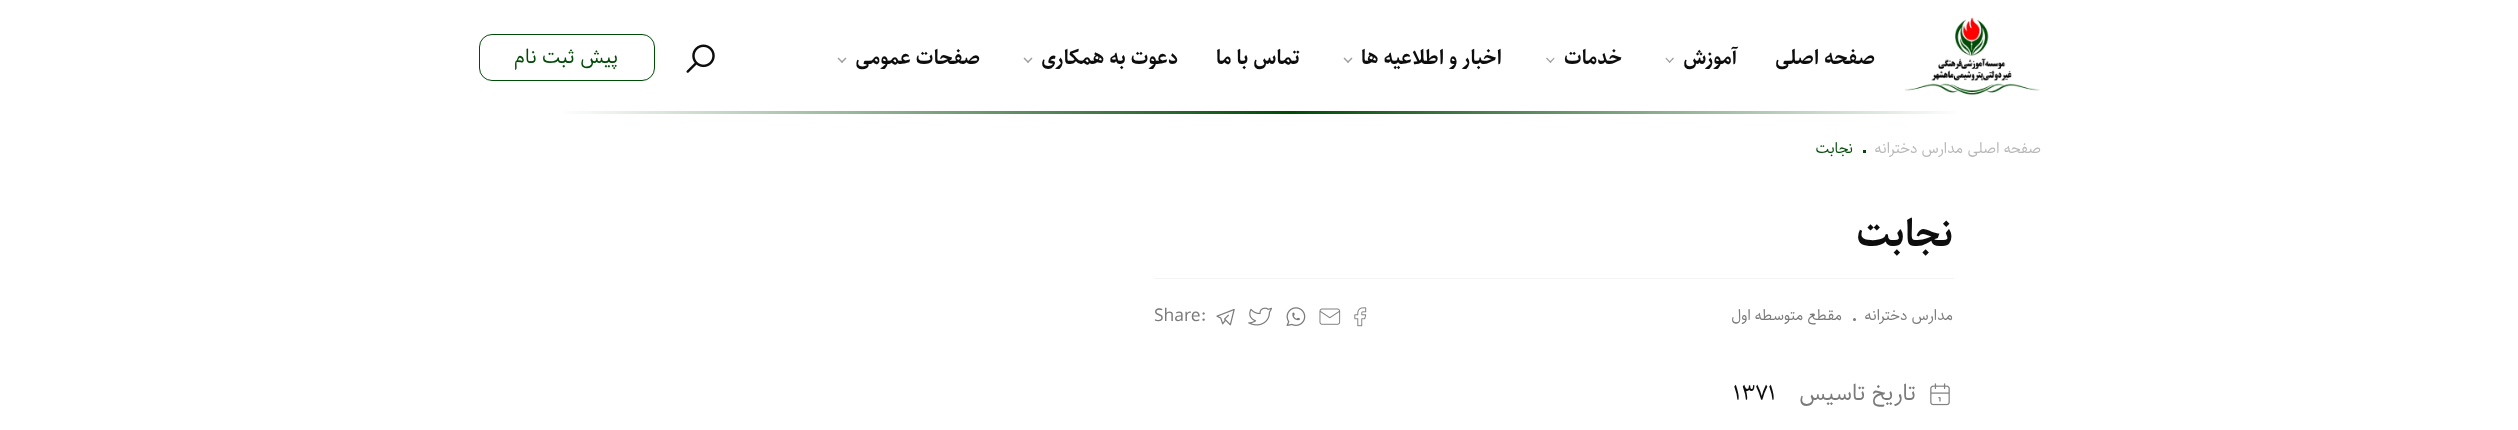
<svg xmlns="http://www.w3.org/2000/svg" xmlns:xlink="http://www.w3.org/1999/xlink" width="2518" height="430" viewBox="0 0 2518 430">
<style>
.cls-1{font:bold 20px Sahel;direction:rtl;fill:#0d0d0d}
.cls-2{font:20px Sahel;direction:rtl;fill:#004b06}
.cls-3{font:15px Sahel;direction:rtl;fill:#b8b8b8}
.cls-4{font:15px Sahel;direction:rtl;fill:#004b06}
.cls-5{font:bold 37.5px Sahel;direction:rtl;fill:#0d0d0d}
.cls-6{font:15px Sahel;direction:rtl;fill:#7b7979}
.cls-7{font:17.5px Sahel;fill:#7b7979}
.cls-8{font:22.5px Sahel;direction:rtl;fill:#7b7979}
.cls-9{font:22.5px Sahel;fill:#0d0d0d}
</style>
<defs>
<linearGradient id="g1" gradientUnits="userSpaceOnUse" x1="479" y1="113" x2="2041" y2="112"><stop offset="0.05" stop-color="#ffffff"/><stop offset="0.52" stop-color="#004b06"/><stop offset="0.95" stop-color="#ffffff"/></linearGradient>
</defs>
<rect width="100%" height="100%" fill="#ffffff"/>
<image xlink:href="image0.png" x="1905" y="17" width="135" height="78"/>
<path fill="#9e9e9e" d="M1673 57.5L1674 58.5L1669.5 63L1669 62Z"/>
<path fill="#9e9e9e" d="M1666 57.5L1670.5 62L1669.5 63L1665.5 58.5Z"/>
<path fill="#9e9e9e" d="M1554 57.5L1554.5 58.5L1550.5 63L1549.5 62Z"/>
<path fill="#9e9e9e" d="M1547 57.5L1551 62L1550.5 63L1546 58.5Z"/>
<path fill="#9e9e9e" d="M1351.5 57.5L1352.5 58.5L1348 63L1347 62Z"/>
<path fill="#9e9e9e" d="M1344.5 57.5L1349 62L1348 63L1343.5 58.5Z"/>
<path fill="#9e9e9e" d="M1031.5 57.5L1032.5 58.5L1028 63L1027 62Z"/>
<path fill="#9e9e9e" d="M1024.5 57.5L1029 62L1028 63L1023.5 58.5Z"/>
<path fill="#9e9e9e" d="M845.5 57.5L846.5 58.5L842 63L841 62Z"/>
<path fill="#9e9e9e" d="M838.5 57.5L843 62L842 63L837.5 58.5Z"/>
<image xlink:href="image1.png" x="686" y="44" width="29" height="29"/>
<rect fill="none" stroke="#004b06" x="479.5" y="34.5" width="175" height="46" rx="12.5"/>
<rect fill="url(#g1)" x="564" y="111" width="1392" height="3"/>
<rect fill="#004b06" x="1863" y="150" width="3" height="3"/>
<rect fill="#f4f4f4" x="1154" y="278" width="800" height="1"/>
<circle fill="#7b7979" cx="1854.5" cy="319.5" r="1.5"/>
<image xlink:href="image2.png" x="1354" y="307" width="13" height="20"/>
<image xlink:href="image3.png" x="1319" y="308" width="22" height="17"/>
<image xlink:href="image4.png" x="1286" y="307" width="20" height="19"/>
<image xlink:href="image5.png" x="1248" y="307" width="24" height="19"/>
<image xlink:href="image6.png" x="1216" y="308" width="19" height="18"/>
<image xlink:href="image7.png" x="1930" y="383" width="20" height="23"/>
<text class="cls-1" x="1875" y="64">صفحه اصلی</text>
<text class="cls-1" x="1738" y="64">آموزش</text>
<text class="cls-1" x="1622" y="64">خدمات</text>
<text class="cls-1" x="1502" y="64">اخبار و اطلاعیه ها</text>
<text class="cls-1" x="1300" y="64">تماس با ما</text>
<text class="cls-1" x="1178" y="64">دعوت به همکاری</text>
<text class="cls-1" x="980" y="64">صفحات عمومی</text>
<text class="cls-2" x="618" y="63">پیش ثبت نام</text>
<text class="cls-3" x="2041" y="153">صفحه اصلی</text>
<text class="cls-3" x="1963" y="153">مدارس دخترانه</text>
<text class="cls-4" x="1853" y="153">نجابت</text>
<text class="cls-5" x="1953" y="246">نجابت</text>
<text class="cls-6" x="1953" y="320">مدارس دخترانه</text>
<text class="cls-6" x="1842" y="320">مقطع متوسطه اول</text>
<text class="cls-7" x="1154" y="321">Share:</text>
<text class="cls-8" x="1916" y="400">تاریخ تاسیس</text>
<text class="cls-9" x="1733" y="400">1371</text>
</svg>
